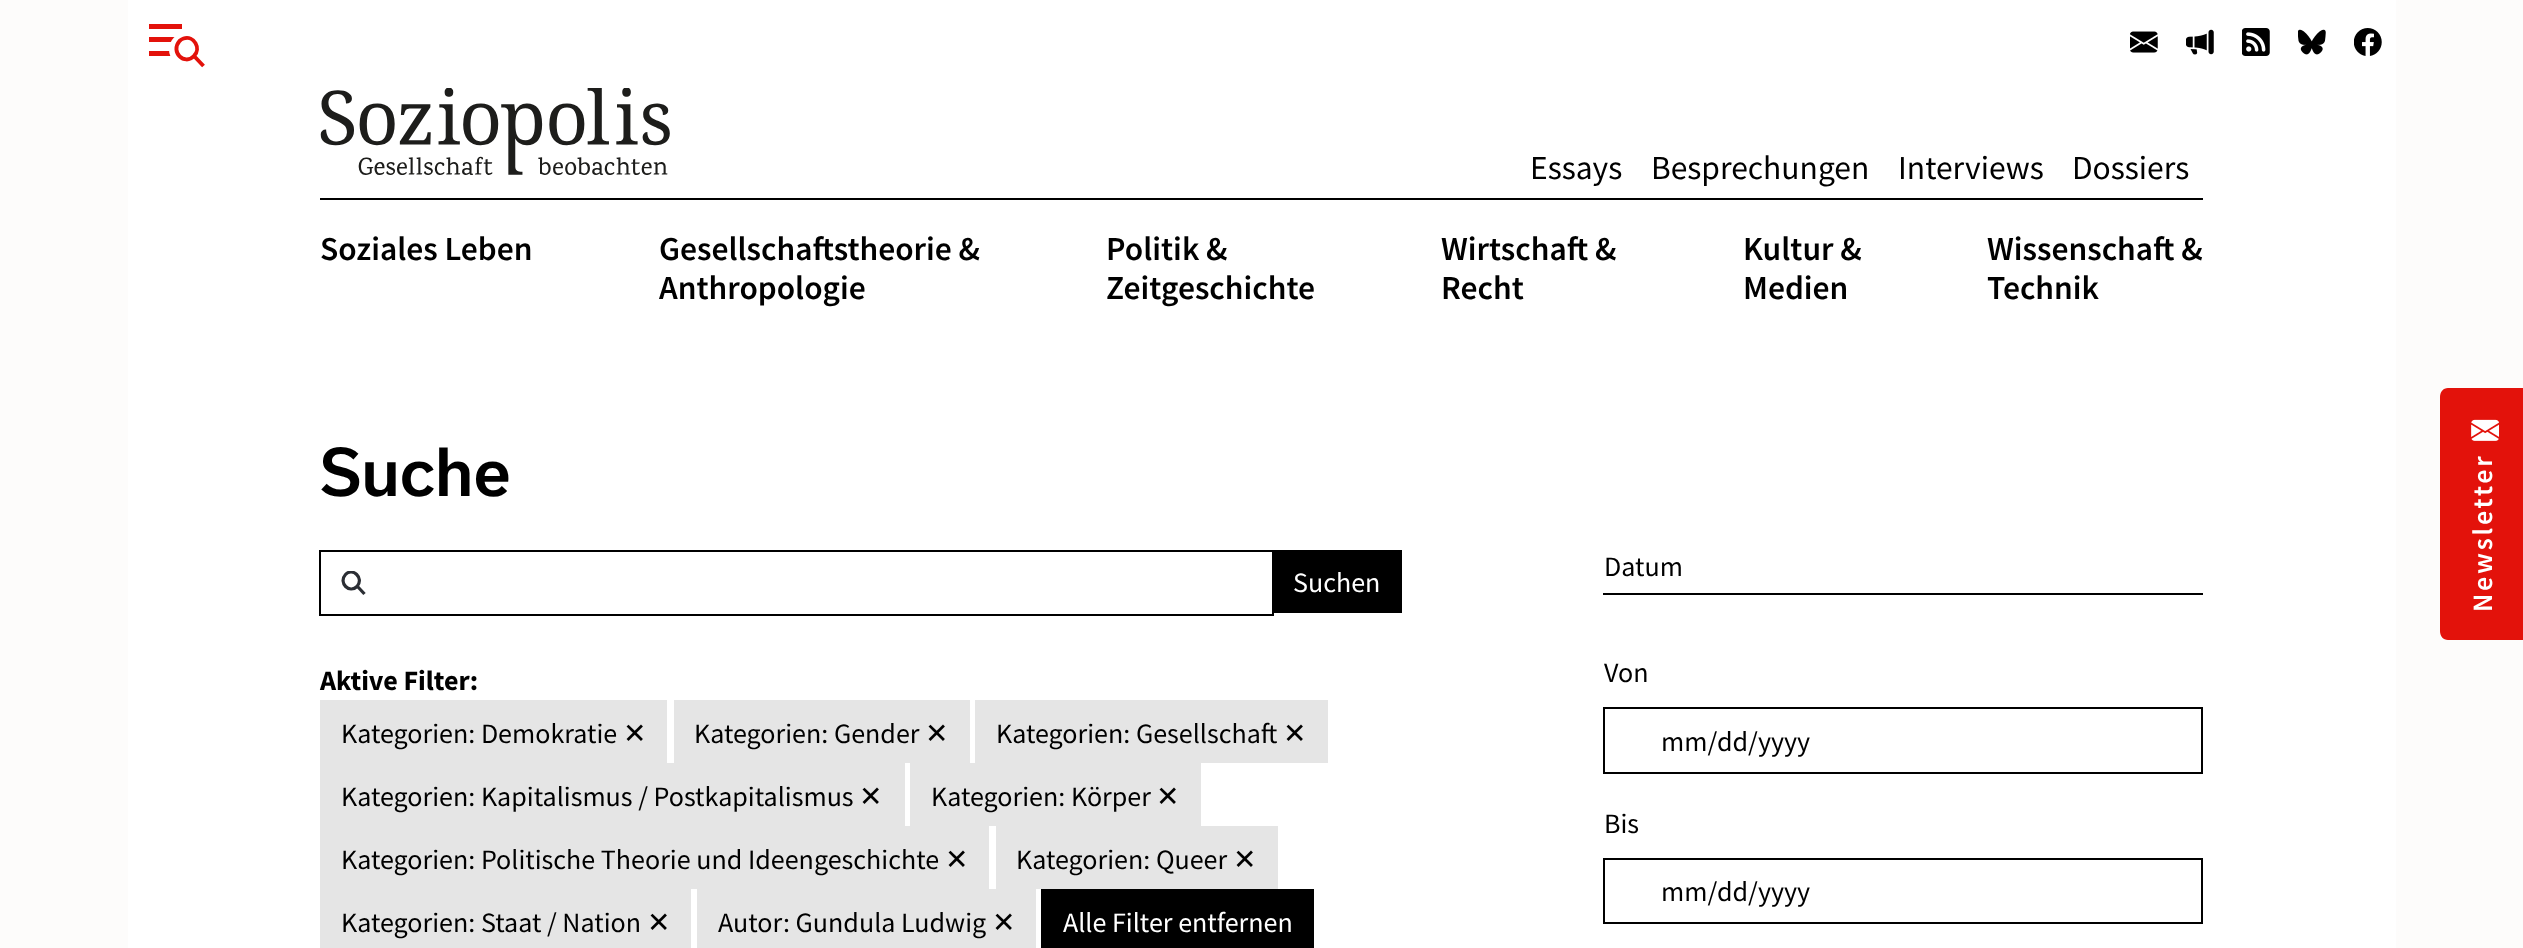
<svg xmlns="http://www.w3.org/2000/svg" xmlns:xlink="http://www.w3.org/1999/xlink" width="2523" height="948" viewBox="0 0 2523 948">
<style>
.cls-1{font:33.5px Source Sans Pro;fill:#000000}
.cls-2{font:600 33.5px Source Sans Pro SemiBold;fill:#000000}
.cls-3{font:500 63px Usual;fill:#000000}
.cls-4{font:28px Source Sans Pro;fill:#ffffff}
.cls-5{font:bold 28px Source Sans Pro;fill:#000000}
.cls-6{font:28px Source Sans Pro;fill:#000000}
.cls-7{font:28px DejaVu Sans;fill:#000000}
.cls-8{font:600 28px Source Sans Pro SemiBold;letter-spacing:2.75px;fill:#ffffff}
</style>
<defs>
<clipPath id="clip1"><rect x="341" y="571" width="25" height="24"/></clipPath>
</defs>
<rect width="100%" height="100%" fill="#fdfcfb"/>
<rect fill="#ffffff" x="128" y="0" width="2268" height="948"/>
<rect fill="#e3120b" x="149" y="24" width="33" height="5"/>
<rect fill="#e3120b" x="149" y="37" width="33" height="5"/>
<rect fill="#e3120b" x="149" y="51" width="22" height="5"/>
<circle fill="#ffffff" cx="186" cy="49.5" r="17"/>
<path fill="none" stroke="#e3120b" stroke-width="3.9" d="M194 56C201.5 48.5 194 35 183.5 38.5C182 39 180.5 40 179.5 41C170 52 184.5 66 194 56ZM194.5 56.5L203.5 66"/>
<image xlink:href="image0.png" x="2130" y="31" width="28" height="22"/>
<image xlink:href="image1.png" x="2186" y="29" width="28" height="26"/>
<image xlink:href="image2.png" x="2242" y="28" width="28" height="28"/>
<image xlink:href="image3.png" x="2298" y="29" width="28" height="26"/>
<image xlink:href="image4.png" x="2354" y="28" width="28" height="28"/>
<rect fill="#000000" x="320" y="198" width="1883" height="2"/>
<image xlink:href="image5.png" x="320" y="88" width="350" height="87"/>
<rect fill="none" stroke="#000000" stroke-width="2" x="320" y="551" width="953" height="64"/>
<g clip-path="url(#clip1)">
<path fill="none" stroke="#2b2e34" stroke-width="3.2" d="M357 586.5C364.5 578 352.5 567 345.5 574.5C338 583 349.5 594 357 586.5Z"/>
</g>
<path fill="none" stroke="#2b2e34" stroke-width="3.2" d="M357.5 586.5L364.5 594"/>
<rect fill="#000000" x="1274" y="550" width="128" height="63"/>
<rect fill="#e5e5e5" x="320" y="700" width="347" height="63"/>
<rect fill="#e5e5e5" x="674" y="700" width="296" height="63"/>
<rect fill="#e5e5e5" x="975" y="700" width="353" height="63"/>
<rect fill="#e5e5e5" x="320" y="763" width="585" height="63"/>
<rect fill="#e5e5e5" x="910" y="763" width="291" height="63"/>
<rect fill="#e5e5e5" x="320" y="826" width="669" height="63"/>
<rect fill="#e5e5e5" x="996" y="826" width="282" height="63"/>
<rect fill="#e5e5e5" x="320" y="889" width="371" height="59"/>
<rect fill="#e5e5e5" x="697" y="889" width="339" height="59"/>
<rect fill="#000000" x="1041" y="889" width="273" height="59"/>
<rect fill="#000000" x="1603" y="593" width="600" height="2"/>
<rect fill="none" stroke="#000000" stroke-width="2" x="1604" y="708" width="598" height="65"/>
<rect fill="none" stroke="#000000" stroke-width="2" x="1604" y="859" width="598" height="64"/>
<path fill="#e3120b" d="M2440 631V397C2440 392 2443 388 2448 388H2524V640H2448C2443 640 2440 636 2440 631Z"/>
<image xlink:href="image6.png" x="2471" y="419" width="28" height="22"/>
<text class="cls-1" x="1530" y="179">Essays</text>
<text class="cls-1" x="1651" y="179">Besprechungen</text>
<text class="cls-1" x="1898" y="179">Interviews</text>
<text class="cls-1" x="2072" y="179">Dossiers</text>
<text class="cls-2" x="320" y="260">Soziales Leben</text>
<text class="cls-2"><tspan x="659" y="260">Gesellschaftstheorie &amp;</tspan><tspan x="659" y="299">Anthropologie</tspan></text>
<text class="cls-2"><tspan x="1106" y="260">Politik &amp;</tspan><tspan x="1106" y="299">Zeitgeschichte</tspan></text>
<text class="cls-2"><tspan x="1441" y="260">Wirtschaft &amp;</tspan><tspan x="1441" y="299">Recht</tspan></text>
<text class="cls-2"><tspan x="1743" y="260">Kultur &amp;</tspan><tspan x="1743" y="299">Medien</tspan></text>
<text class="cls-2"><tspan x="1987" y="260">Wissenschaft &amp;</tspan><tspan x="1987" y="299">Technik</tspan></text>
<text class="cls-3" x="320" y="496">Suche</text>
<text class="cls-4" x="1293" y="592">Suchen</text>
<text class="cls-5" x="320" y="690">Aktive Filter:</text>
<text class="cls-6" x="341" y="743">Kategorien: Demokratie</text>
<text class="cls-7" x="623" y="743">✕</text>
<text class="cls-6" x="694" y="743">Kategorien: Gender</text>
<text class="cls-7" x="925" y="743">✕</text>
<text class="cls-6" x="996" y="743">Kategorien: Gesellschaft</text>
<text class="cls-7" x="1283" y="743">✕</text>
<text class="cls-6" x="341" y="806">Kategorien: Kapitalismus / Postkapitalismus</text>
<text class="cls-7" x="859" y="806">✕</text>
<text class="cls-6" x="931" y="806">Kategorien: Körper</text>
<text class="cls-7" x="1156" y="806">✕</text>
<text class="cls-6" x="341" y="869">Kategorien: Politische Theorie und Ideengeschichte</text>
<text class="cls-7" x="945" y="869">✕</text>
<text class="cls-6" x="1016" y="869">Kategorien: Queer</text>
<text class="cls-7" x="1233" y="869">✕</text>
<text class="cls-6" x="341" y="932">Kategorien: Staat / Nation</text>
<text class="cls-7" x="647" y="932">✕</text>
<text class="cls-6" x="718" y="932">Autor: Gundula Ludwig</text>
<text class="cls-7" x="992" y="932">✕</text>
<text class="cls-4" x="1063" y="932">Alle Filter entfernen</text>
<text class="cls-6" x="1604" y="576">Datum</text>
<text class="cls-6" x="1604" y="682">Von</text>
<text class="cls-6" x="1661" y="751">mm/</text>
<text class="cls-6" x="1717" y="751">dd/yyyy</text>
<text class="cls-6" x="1604" y="833">Bis</text>
<text class="cls-6" x="1661" y="901">mm/</text>
<text class="cls-6" x="1717" y="901">dd/yyyy</text>
<text class="cls-8" x="2492" y="612" transform="rotate(-90 2492 612)">Newsletter</text>
</svg>
